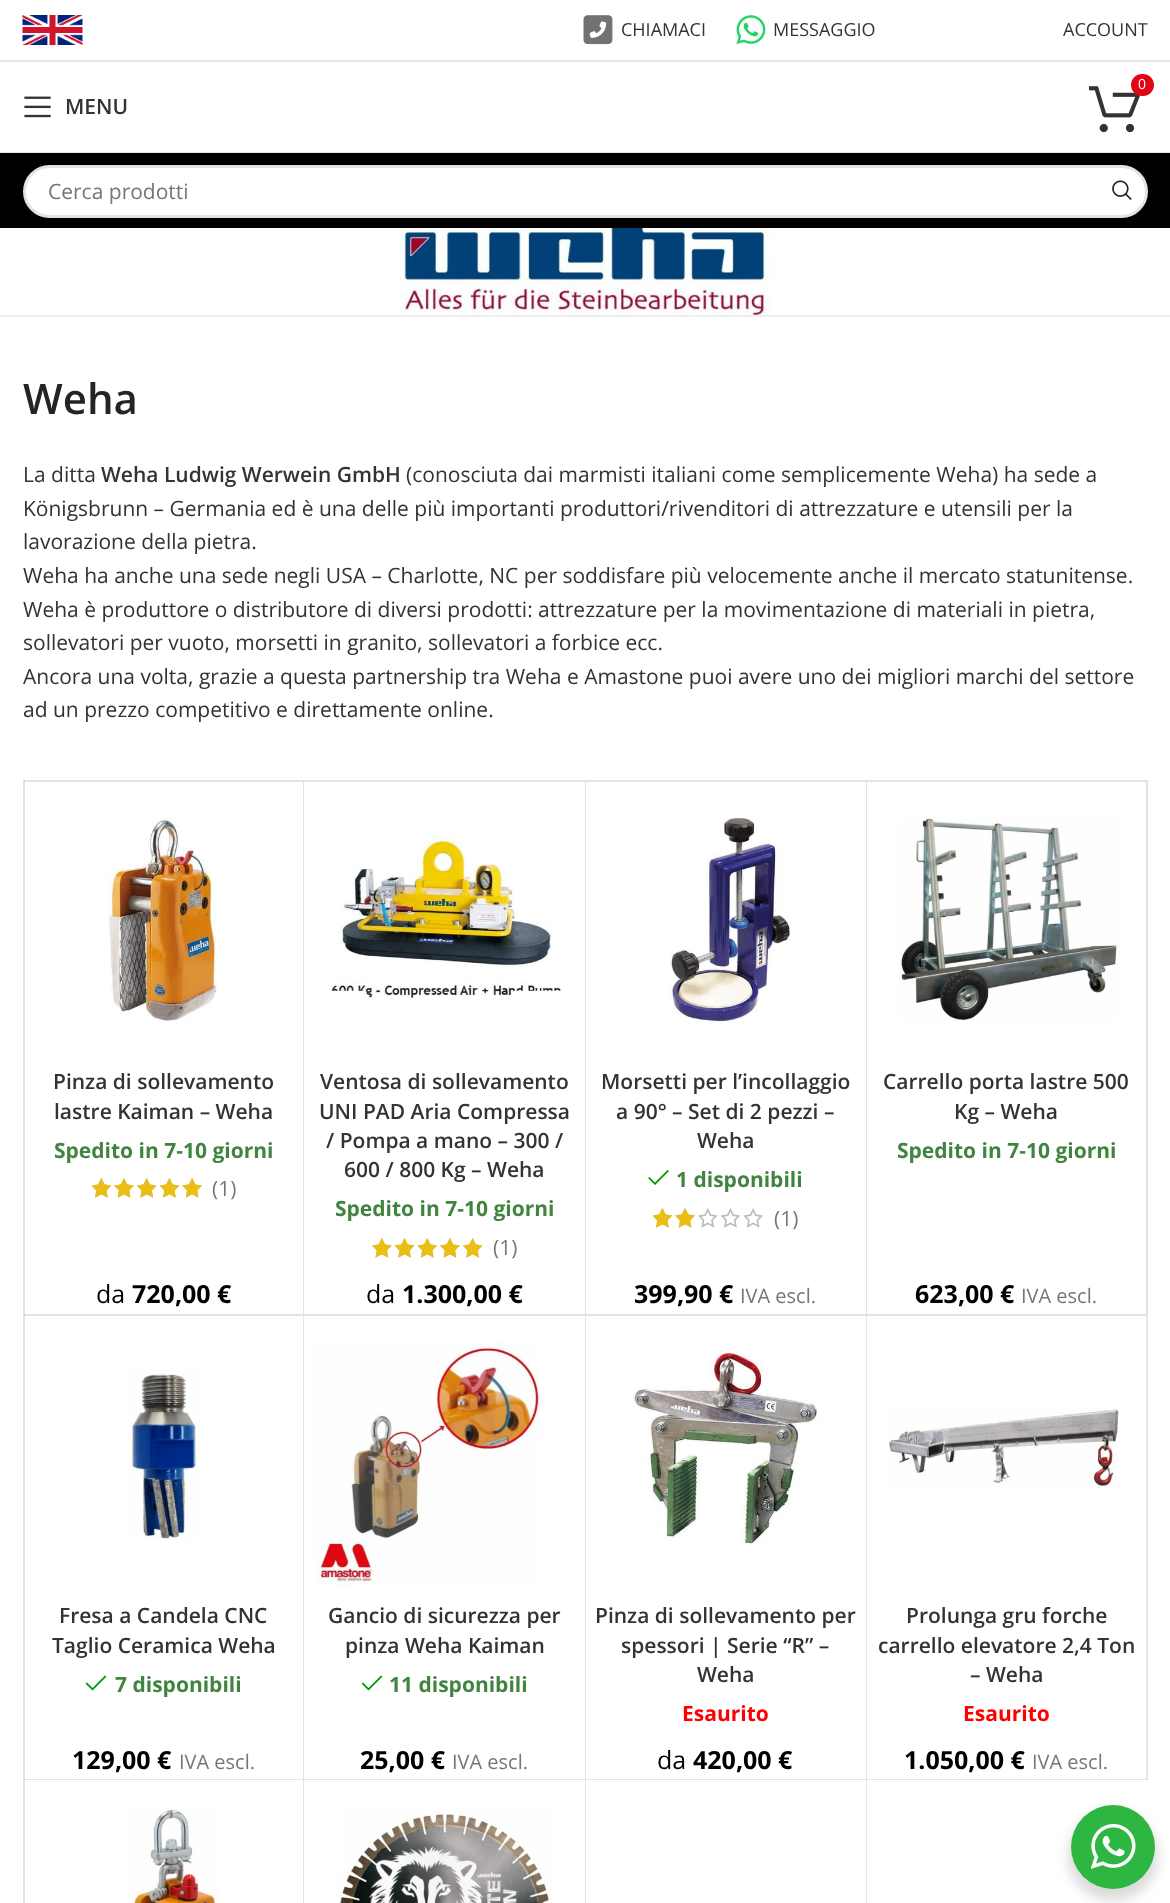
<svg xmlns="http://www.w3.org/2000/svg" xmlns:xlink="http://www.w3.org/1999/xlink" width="1170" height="1903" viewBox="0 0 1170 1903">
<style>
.cls-1{font:18px Open Sans;fill:#333333}
.cls-2{font:14px Open Sans;fill:#ffffff}
.cls-3{font:600 21px Open Sans;fill:#333333}
.cls-4{font:21px Open Sans;fill:#767676}
.cls-5{font:600 42px Open Sans;fill:#242424}
.cls-6{font:21px Open Sans;fill:#333333}
.cls-7{font:bold 21px Open Sans;fill:#40843f}
.cls-8{font:25px Open Sans;fill:#000000}
.cls-9{font:bold 25px Open Sans;fill:#000000}
.cls-10{font:20px Open Sans;fill:#767676}
.cls-11{font:bold 21px Open Sans;fill:#ff0000}
</style>
<rect width="100%" height="100%" fill="#ffffff"/>
<rect fill="#e6e6e4" x="0" y="60" width="1170" height="2"/>
<image xlink:href="image0.png" x="22" y="15" width="61" height="30"/>
<image xlink:href="image1.png" x="583" y="15" width="30" height="30"/>
<image xlink:href="image2.png" x="736" y="15" width="30" height="29"/>
<rect fill="#e6e6e6" x="0" y="152" width="1170" height="1"/>
<image xlink:href="image3.png" x="1089" y="86" width="52" height="47"/>
<rect fill="#e30514" x="1131" y="74" width="23" height="22" rx="11"/>
<image xlink:href="image4.png" x="24" y="96" width="27" height="22"/>
<rect fill="#000000" x="0" y="153" width="1170" height="75"/>
<rect fill="#ffffff" stroke="#e3e3e3" stroke-width="3" x="24.5" y="166.5" width="1122" height="50" rx="25"/>
<image xlink:href="image5.png" x="1112" y="180" width="20" height="20"/>
<rect fill="#efefef" x="0" y="315" width="1170" height="2"/>
<image xlink:href="image6.png" x="399" y="228" width="374" height="87"/>
<rect fill="#e4e4e4" x="23" y="780" width="2" height="1123"/>
<path fill="#000000" fill-opacity="0.11" d="M24 780H304L303 782H24Z"/>
<path fill="#000000" fill-opacity="0.11" d="M304 780V1316L303 1314V782Z"/>
<path fill="#000000" fill-opacity="0.11" d="M304 1316H24V1314H303Z"/>
<image xlink:href="image7.png" x="107" y="818" width="112" height="204"/>
<image xlink:href="image8.png" x="91" y="1178" width="111" height="20"/>
<image xlink:href="image9.png" x="92" y="1178" width="110" height="20"/>
<path fill="#e4e4e4" d="M304 780H586L585 782H304Z"/>
<path fill="#000000" fill-opacity="0.11" d="M586 780V1316L585 1314V782Z"/>
<path fill="#000000" fill-opacity="0.11" d="M586 1316H304V1314H585Z"/>
<image xlink:href="image10.png" x="331" y="836" width="231" height="164"/>
<image xlink:href="image11.png" x="372" y="1238" width="111" height="20"/>
<image xlink:href="image12.png" x="372" y="1238" width="111" height="20"/>
<path fill="#e4e4e4" d="M586 780H867L866 782H586Z"/>
<path fill="#000000" fill-opacity="0.11" d="M867 780V1316L866 1314V782Z"/>
<path fill="#000000" fill-opacity="0.11" d="M867 1316H586V1314H866Z"/>
<image xlink:href="image13.png" x="669" y="817" width="122" height="207"/>
<path fill="#009a00" d="M669 1171L667.5 1170L655 1182.5L649.5 1177L648 1178L655 1185Z"/>
<image xlink:href="image8.png" x="652" y="1208" width="111" height="20"/>
<image xlink:href="image14.png" x="653" y="1208" width="42" height="20"/>
<path fill="#e4e4e4" d="M867 780H1148L1146 782H867Z"/>
<path fill="#000000" fill-opacity="0.11" d="M1148 780V1316L1146 1314V782Z"/>
<path fill="#000000" fill-opacity="0.11" d="M1148 1316H867V1314H1146Z"/>
<image xlink:href="image15.png" x="899" y="817" width="220" height="204"/>
<path fill="#e4e4e4" d="M304 1316V1780L303 1779V1316Z"/>
<path fill="#000000" fill-opacity="0.11" d="M304 1780H24V1779H303Z"/>
<image xlink:href="image16.png" x="125" y="1370" width="74" height="169"/>
<path fill="#009a00" d="M106.5 1676.5L105 1675.5L92.5 1688L87 1682.5L85.5 1683.5L92.5 1690.5Z"/>
<path fill="#e4e4e4" d="M586 1316V1780L585 1779V1316Z"/>
<path fill="#000000" fill-opacity="0.11" d="M586 1780H304V1779H585Z"/>
<image xlink:href="image17.png" x="315" y="1342" width="225" height="244"/>
<path fill="#009a00" d="M382.5 1676.5L381 1675.5L368.5 1688L363 1682.5L361.5 1683.5L368.5 1690.5Z"/>
<path fill="#e4e4e4" d="M867 1316V1780L866 1779V1316Z"/>
<path fill="#000000" fill-opacity="0.11" d="M867 1780H586V1779H866Z"/>
<image xlink:href="image18.png" x="632" y="1351" width="187" height="194"/>
<path fill="#e4e4e4" d="M1148 1316V1780L1146 1779V1316Z"/>
<path fill="#000000" fill-opacity="0.11" d="M1148 1780H867V1779H1146Z"/>
<image xlink:href="image19.png" x="889" y="1408" width="230" height="82"/>
<path fill="#e4e4e4" d="M304 1780V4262L303 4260V1780Z"/>
<image xlink:href="image20.png" x="125" y="1807" width="95" height="96"/>
<path fill="#e4e4e4" d="M586 1780V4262L585 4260V1780Z"/>
<image xlink:href="image21.png" x="340" y="1808" width="213" height="95"/>
<path fill="#e4e4e4" d="M867 1780V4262L866 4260V1780Z"/>
<rect fill="#000000" fill-opacity="0.14" filter="blur(6px)" x="1068" y="1811" width="90" height="90" rx="45"/>
<circle fill="#2db742" cx="1113" cy="1847" r="42"/>
<image xlink:href="image22.png" x="1091" y="1824" width="45" height="45"/>
<text class="cls-1" x="621" y="36">CHIAMACI</text>
<text class="cls-1" x="773" y="36">MESSAGGIO</text>
<text class="cls-1" x="1063" y="36">ACCOUNT</text>
<text class="cls-2" x="1138" y="89">0</text>
<text class="cls-3" x="65" y="114">MENU</text>
<text class="cls-4" x="48" y="199">Cerca prodotti</text>
<text class="cls-5" x="23" y="414">Weha</text>
<text class="cls-6" x="23" y="482">La ditta</text>
<text class="cls-3" x="101" y="482">Weha Ludwig Werwein GmbH</text>
<text class="cls-6" x="406" y="482">(conosciuta dai marmisti italiani come semplicemente Weha) ha sede a</text>
<text class="cls-6"><tspan x="23" y="516">Königsbrunn – Germania ed è una delle più importanti produttori/rivenditori di attrezzature e utensili per la</tspan><tspan x="23" y="549">lavorazione della pietra.</tspan><tspan x="23" y="583">Weha ha anche una sede negli USA – Charlotte, NC per soddisfare più velocemente anche il mercato statunitense.</tspan><tspan x="23" y="617">Weha è produttore o distributore di diversi prodotti: attrezzature per la movimentazione di materiali in pietra,</tspan><tspan x="23" y="650">sollevatori per vuoto, morsetti in granito, sollevatori a forbice ecc.</tspan><tspan x="23" y="684">Ancora una volta, grazie a questa partnership tra Weha e Amastone puoi avere uno dei migliori marchi del settore</tspan><tspan x="23" y="717">ad un prezzo competitivo e direttamente online.</tspan></text>
<text class="cls-3" x="53" y="1089">Pinza di sollevamento</text>
<text class="cls-3" x="54" y="1119">lastre Kaiman – Weha</text>
<text class="cls-7" x="54" y="1158">Spedito in 7-10 giorni</text>
<text class="cls-4" x="212" y="1196">(1)</text>
<text class="cls-8" x="96" y="1303">da</text>
<text class="cls-9" x="132" y="1303">720,00 €</text>
<text class="cls-3" x="320" y="1089">Ventosa di sollevamento</text>
<text class="cls-3" x="319" y="1119">UNI PAD Aria Compressa</text>
<text class="cls-3" x="326" y="1148">/ Pompa a mano – 300 /</text>
<text class="cls-3" x="344" y="1177">600 / 800 Kg – Weha</text>
<text class="cls-7" x="335" y="1216">Spedito in 7-10 giorni</text>
<text class="cls-4" x="493" y="1255">(1)</text>
<text class="cls-8" x="366" y="1303">da</text>
<text class="cls-9" x="402" y="1303">1.300,00 €</text>
<text class="cls-3" x="601" y="1089">Morsetti per l’incollaggio</text>
<text class="cls-3" x="616" y="1119">a 90° – Set di 2 pezzi –</text>
<text class="cls-3" x="697" y="1148">Weha</text>
<text class="cls-7" x="676" y="1187">1 disponibili</text>
<text class="cls-4" x="774" y="1226">(1)</text>
<text class="cls-9" x="634" y="1303">399,90 €</text>
<text class="cls-10" x="740" y="1303">IVA escl.</text>
<text class="cls-3" x="883" y="1089">Carrello porta lastre 500</text>
<text class="cls-3" x="954" y="1119">Kg – Weha</text>
<text class="cls-7" x="897" y="1158">Spedito in 7-10 giorni</text>
<text class="cls-9" x="915" y="1303">623,00 €</text>
<text class="cls-10" x="1021" y="1303">IVA escl.</text>
<text class="cls-3" x="59" y="1623">Fresa a Candela CNC</text>
<text class="cls-3" x="52" y="1653">Taglio Ceramica Weha</text>
<text class="cls-7" x="115" y="1692">7 disponibili</text>
<text class="cls-9" x="72" y="1769">129,00 €</text>
<text class="cls-10" x="179" y="1769">IVA escl.</text>
<text class="cls-3" x="328" y="1623">Gancio di sicurezza per</text>
<text class="cls-3" x="345" y="1653">pinza Weha Kaiman</text>
<text class="cls-7" x="389" y="1692">11 disponibili</text>
<text class="cls-9" x="360" y="1769">25,00 €</text>
<text class="cls-10" x="452" y="1769">IVA escl.</text>
<text class="cls-3" x="595" y="1623">Pinza di sollevamento per</text>
<text class="cls-3" x="621" y="1653">spessori | Serie “R” –</text>
<text class="cls-3" x="697" y="1682">Weha</text>
<text class="cls-11" x="682" y="1721">Esaurito</text>
<text class="cls-8" x="657" y="1769">da</text>
<text class="cls-9" x="693" y="1769">420,00 €</text>
<text class="cls-3" x="906" y="1623">Prolunga gru forche</text>
<text class="cls-3" x="878" y="1653">carrello elevatore 2,4 Ton</text>
<text class="cls-3" x="970" y="1682">– Weha</text>
<text class="cls-11" x="963" y="1721">Esaurito</text>
<text class="cls-9" x="904" y="1769">1.050,00 €</text>
<text class="cls-10" x="1032" y="1769">IVA escl.</text>
</svg>
